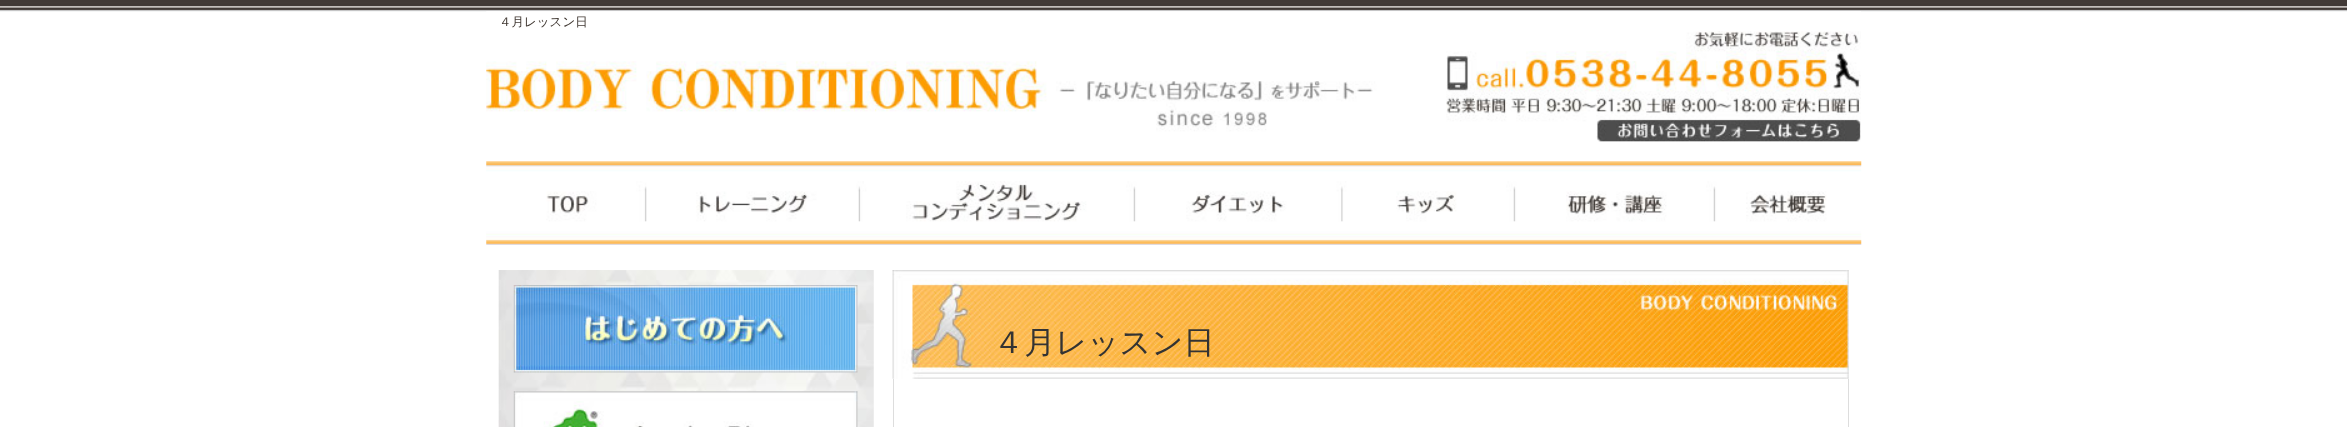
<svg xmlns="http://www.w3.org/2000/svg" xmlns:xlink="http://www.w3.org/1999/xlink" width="2347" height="427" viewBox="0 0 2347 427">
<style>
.cls-1{font:500 12.5px WenQuanYi Zen Hei;fill:#413933}
.cls-2{font:500 31.25px WenQuanYi Zen Hei;fill:#333333}
</style>
<rect width="100%" height="100%" fill="#ffffff"/>
<image xlink:href="image0.png" x="0" y="0" width="2347" height="12"/>
<image xlink:href="image1.png" x="486" y="11" width="1375" height="131"/>
<image xlink:href="image2.png" x="486" y="161" width="1376" height="84"/>
<image xlink:href="image3.png" x="498" y="270" width="376" height="157"/>
<image xlink:href="image4.png" x="513" y="285" width="345" height="88"/>
<image xlink:href="image5.png" x="513" y="391" width="345" height="36"/>
<image xlink:href="image6.png" x="892" y="270" width="957" height="109"/>
<rect fill="#dddddd" x="1848" y="379" width="1" height="48"/>
<rect fill="#dddddd" x="893" y="379" width="1" height="48"/>
<text class="cls-1" x="499" y="26">４月レッスン日</text>
<text class="cls-2" x="993" y="353">４月レッスン日</text>
</svg>
